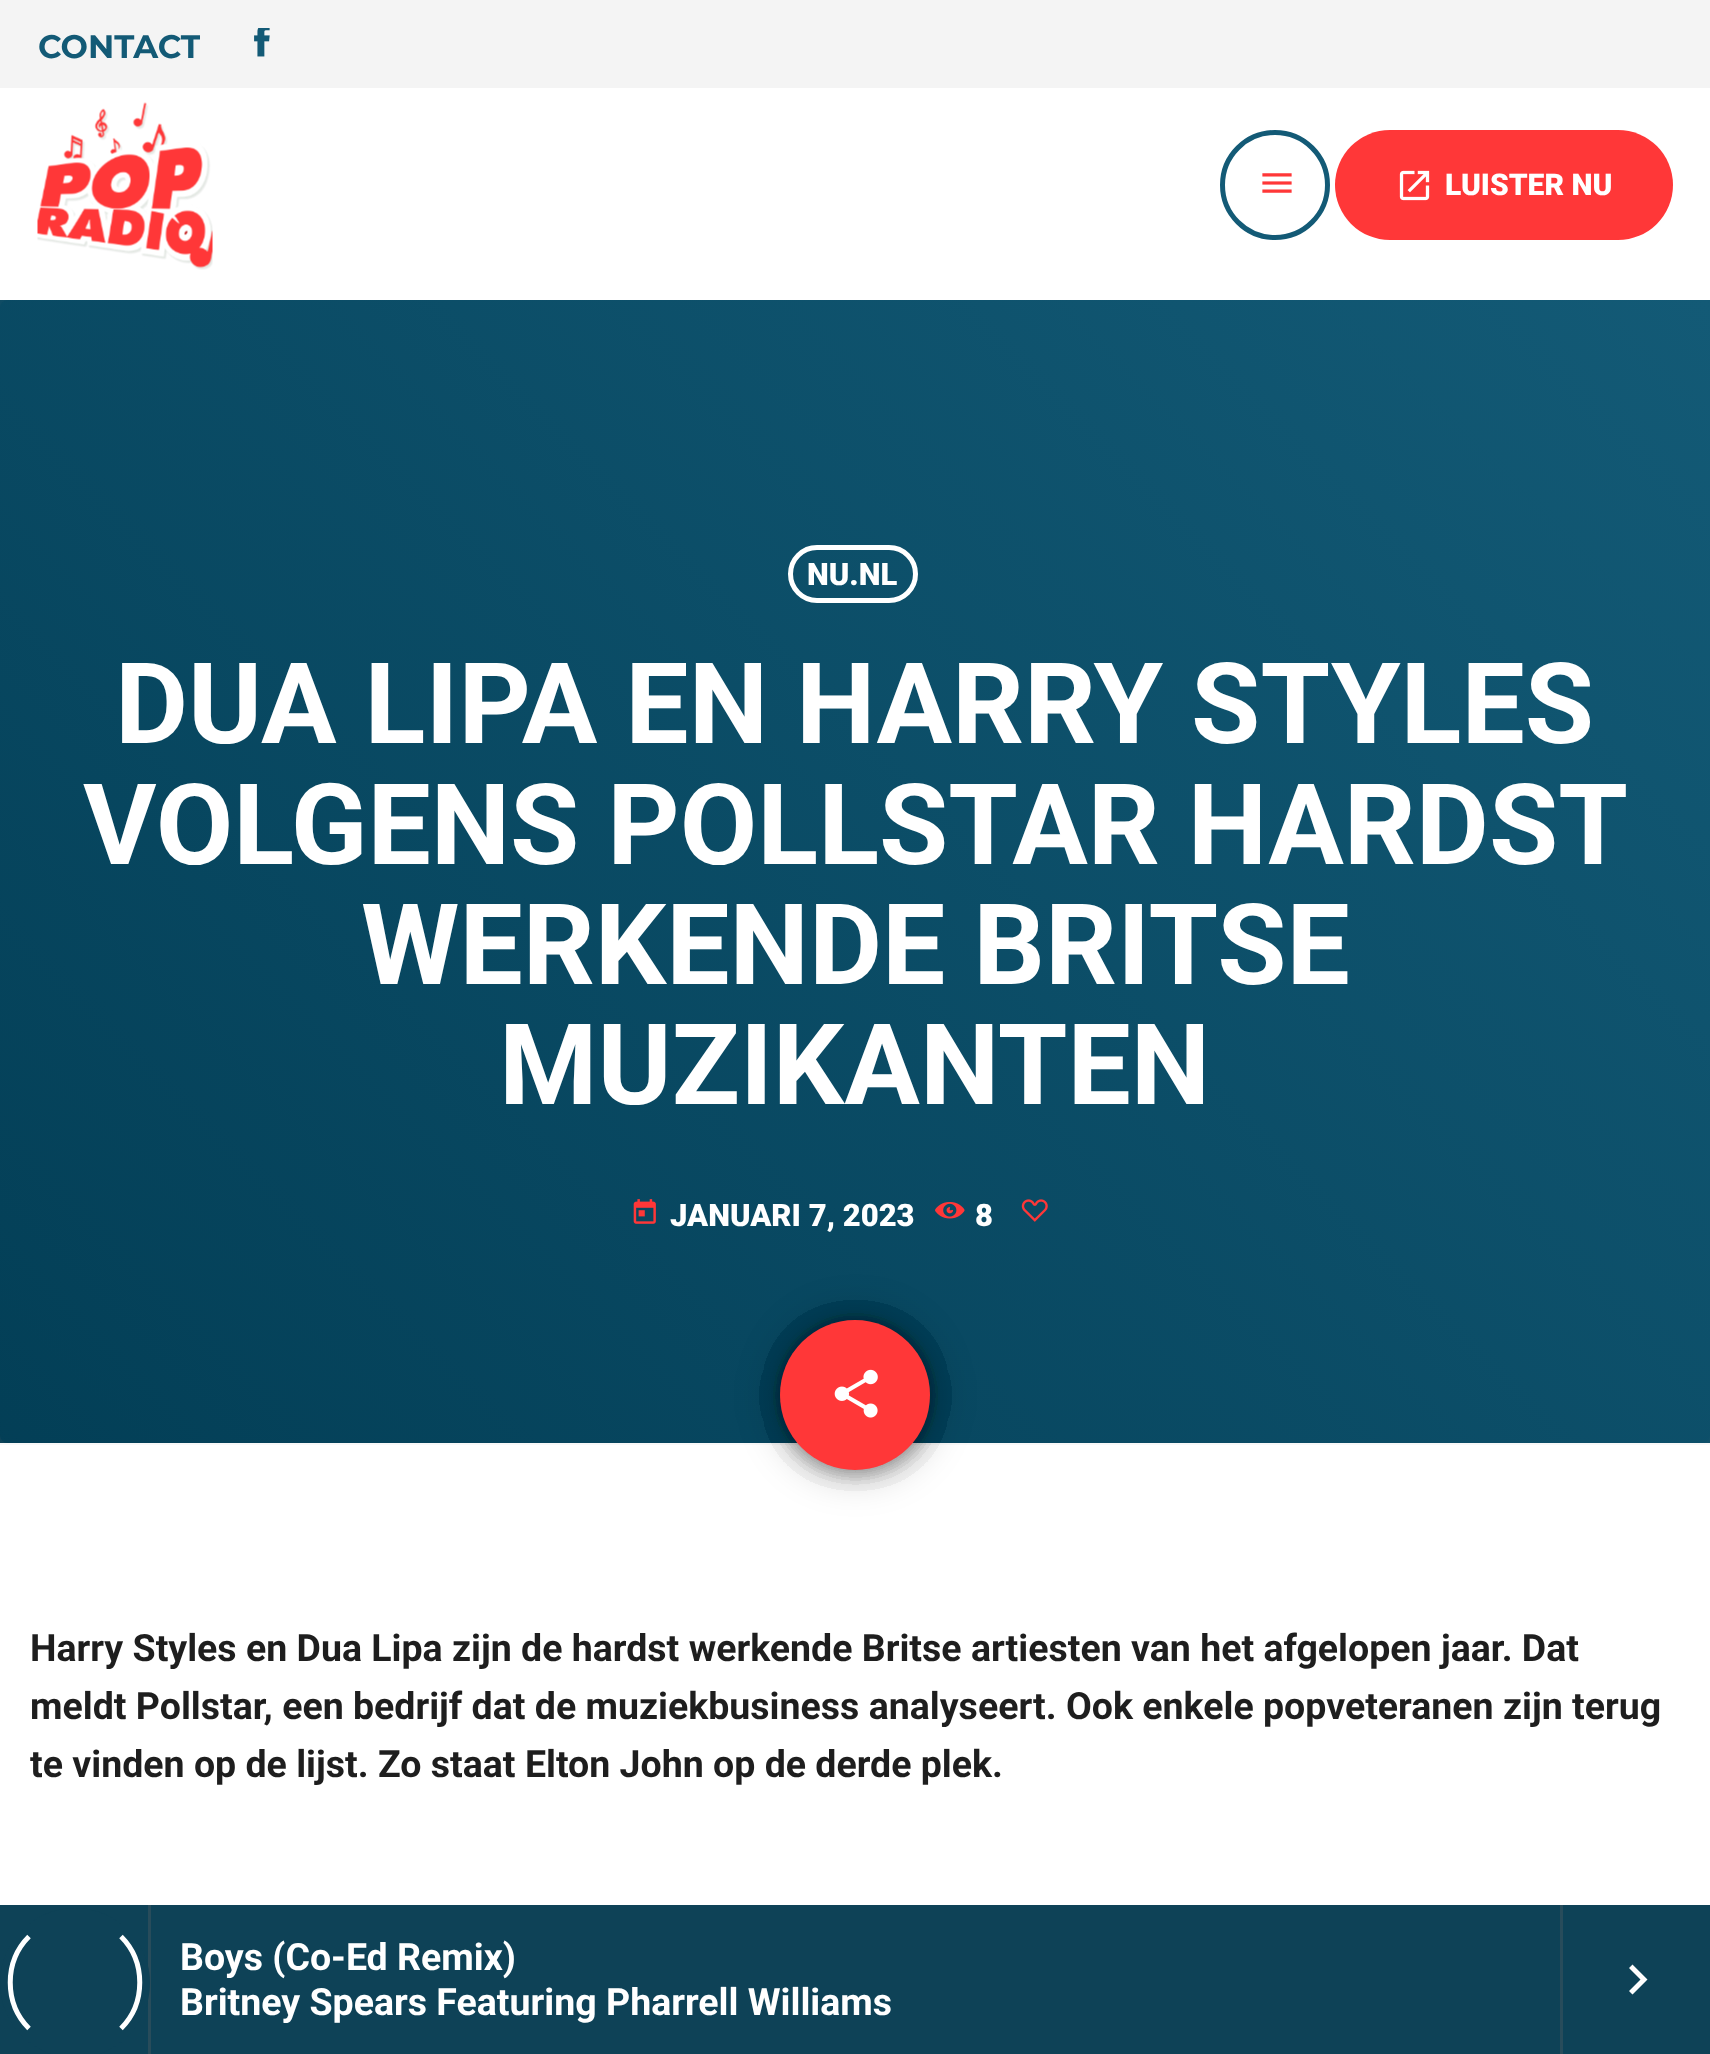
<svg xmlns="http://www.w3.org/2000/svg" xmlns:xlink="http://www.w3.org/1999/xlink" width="1710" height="2054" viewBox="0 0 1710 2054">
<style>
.cls-1{font:bold 32.5px Montserrat;fill:#135a76}
.cls-2{font:900 30px Roboto;fill:#ffffff}
.cls-3{font:bold 37.5px Roboto;fill:#ffffff}
.cls-4{font:900 31px Roboto;fill:#ffffff}
.cls-5{font:bold 112.5px Roboto;fill:#ffffff}
.cls-6{font:bold 37.5px Roboto;fill:#1e1e1e}
</style>
<defs>
<linearGradient id="g1" gradientUnits="userSpaceOnUse" x1="142" y1="1584" x2="1568" y2="158"><stop offset="0" stop-color="#135a76" stop-opacity="0.15"/><stop offset="1" stop-color="#135a76"/></linearGradient>
<clipPath id="clip1"><rect x="38" y="30" width="162" height="33"/></clipPath>
</defs>
<rect width="100%" height="100%" fill="#ffffff"/>
<rect fill="#f4f4f4" x="0" y="0" width="1710" height="88"/>
<image xlink:href="image0.png" x="254" y="28" width="16" height="29"/>
<image xlink:href="image1.png" x="37" y="102" width="176" height="168"/>
<circle fill="none" stroke="#135a76" stroke-width="5" cx="1275" cy="185" r="52.5"/>
<image xlink:href="image2.png" x="1262" y="173" width="30" height="20"/>
<rect fill="#ff3738" x="1335" y="130" width="338" height="110" rx="55"/>
<image xlink:href="image3.png" x="1399" y="170" width="31" height="31"/>
<rect fill="#0e4257" x="0" y="1905" width="1710" height="149"/>
<rect fill="#284c5b" x="148" y="1905" width="3" height="149"/>
<circle fill="#0e4257" cx="75" cy="1983" r="75"/>
<path fill="none" stroke="#ffffff" stroke-width="5" d="M121 1936.5C146 1961.5 146 2003.5 121 2028.5"/>
<path fill="none" stroke="#ffffff" stroke-width="5" d="M29 2028.5C4 2003.5 4 1961.5 29 1936.5"/>
<rect fill="#284c5b" x="1560" y="1905" width="3" height="149"/>
<path fill="#ffffff" d="M1629 1991L1640.5 1979.5L1629 1968L1632.5 1964.5L1647.5 1979.5L1632.5 1994.5Z"/>
<rect fill="#f8f8f8" x="0" y="1443" width="1710" height="2"/>
<rect fill="#0d3f53" x="0" y="300" width="1710" height="1143"/>
<rect fill="#003a51" x="0" y="300" width="1710" height="1143" rx="8"/>
<rect fill="url(#g1)" x="0" y="300" width="1710" height="1143"/>
<rect fill="none" stroke="#ffffff" stroke-width="5" x="790.5" y="547.5" width="125" height="53" rx="26.5"/>
<image xlink:href="image4.png" x="633" y="1199" width="23" height="25"/>
<image xlink:href="image5.png" x="935" y="1202" width="30" height="17"/>
<image xlink:href="image6.png" x="1021" y="1199" width="27" height="23"/>
<rect fill="#000000" fill-opacity="0.2" filter="blur(19px)" x="773" y="1313" width="165" height="165" rx="82.5"/>
<rect fill="#000000" fill-opacity="0.2" filter="blur(19px)" x="798" y="1338" width="115" height="115" rx="57.5"/>
<rect fill="#000000" fill-opacity="0.2" filter="blur(19px)" x="798" y="1338" width="115" height="115" rx="57.5"/>
<rect fill="#000000" fill-opacity="0.2" filter="blur(19px)" x="798" y="1338" width="115" height="115" rx="57.5"/>
<rect fill="#000000" fill-opacity="0.2" filter="blur(19px)" x="798" y="1338" width="115" height="115" rx="57.5"/>
<rect fill="#000000" fill-opacity="0.2" filter="blur(19px)" x="798" y="1338" width="115" height="115" rx="57.5"/>
<rect fill="#000000" fill-opacity="0.2" filter="blur(19px)" x="798" y="1338" width="115" height="115" rx="57.5"/>
<rect fill="#000000" fill-opacity="0.2" filter="blur(19px)" x="798" y="1338" width="115" height="115" rx="57.5"/>
<rect fill="#000000" fill-opacity="0.2" filter="blur(19px)" x="798" y="1338" width="115" height="115" rx="57.5"/>
<rect fill="#000000" fill-opacity="0.2" filter="blur(19px)" x="798" y="1338" width="115" height="115" rx="57.5"/>
<circle fill="#ff3738" cx="855" cy="1395" r="75"/>
<image xlink:href="image7.png" x="834" y="1369" width="44" height="49"/>
<g clip-path="url(#clip1)">
<text class="cls-1" x="38" y="58">CONTACT</text>
</g>
<text class="cls-2" x="1445" y="195">LUISTER NU</text>
<text class="cls-3"><tspan x="180" y="1970">Boys (Co-Ed Remix)</tspan><tspan x="180" y="2015">Britney Spears Featuring Pharrell Williams</tspan></text>
<text class="cls-4" x="807" y="585">NU.NL</text>
<text class="cls-5" x="115" y="743">DUA LIPA EN HARRY STYLES</text>
<text class="cls-5" x="83" y="864">VOLGENS POLLSTAR HARDST</text>
<text class="cls-5" x="361" y="984">WERKENDE BRITSE</text>
<text class="cls-5" x="499" y="1104">MUZIKANTEN</text>
<text class="cls-4" x="670" y="1226">JANUARI 7, 2023</text>
<text class="cls-4" x="975" y="1226">8</text>
<text class="cls-6"><tspan x="30" y="1661">Harry Styles en Dua Lipa zijn de hardst werkende Britse artiesten van het afgelopen jaar. Dat</tspan><tspan x="30" y="1719">meldt Pollstar, een bedrijf dat de muziekbusiness analyseert. Ook enkele popveteranen zijn terug</tspan><tspan x="30" y="1777">te vinden op de lijst. Zo staat Elton John op de derde plek.</tspan></text>
</svg>
